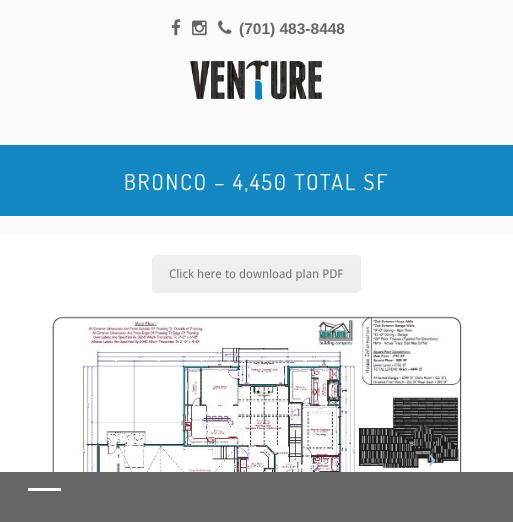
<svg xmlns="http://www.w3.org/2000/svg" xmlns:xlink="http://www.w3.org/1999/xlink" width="513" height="522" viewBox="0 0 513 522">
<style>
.cls-1{font:bold 15.5px Liberation Sans;fill:#666666}
.cls-2{font:22px Dosis;letter-spacing:2px;fill:#ffffff}
.cls-3{font:12px Droid Sans;fill:#757575}
.cls-4{font:30px Liberation Serif;fill:#95c9e3}
</style>
<defs>
<clipPath id="clip1"><rect x="152" y="255" width="209" height="38" rx="5"/></clipPath>
<linearGradient id="g1" gradientUnits="userSpaceOnUse" x1="257" y1="256" x2="257" y2="292"><stop offset="0" stop-color="#ffffff" stop-opacity="0.2"/><stop offset="1" stop-color="#ffffff" stop-opacity="0.01"/></linearGradient>
</defs>
<rect width="100%" height="100%" fill="#fbfbfb"/>
<image xlink:href="image0.png" x="171" y="19" width="10" height="17"/>
<image xlink:href="image1.png" x="192" y="20" width="15" height="16"/>
<image xlink:href="image2.png" x="218" y="20" width="14" height="14"/>
<image xlink:href="image3.png" x="190" y="60" width="132" height="40"/>
<rect fill="#1387c1" x="0" y="145" width="513" height="71"/>
<rect fill="#ffffff" x="0" y="234" width="513" height="238"/>
<rect fill="#ededed" x="152" y="255" width="209" height="38" rx="5"/>
<g clip-path="url(#clip1)">
<rect fill="url(#g1)" x="152" y="256" width="209" height="34"/>
</g>
<rect fill="none" stroke="#ededed" x="152.5" y="255.5" width="208" height="37" rx="4.5"/>
<image xlink:href="image4.png" x="52" y="315" width="410" height="157"/>
<rect fill="#666666" x="0" y="472" width="513" height="50"/>
<rect fill="#ffffff" x="28" y="488" width="33" height="3"/>
<text class="cls-1" x="239" y="34">(701) 483-8448</text>
<text class="cls-2" x="124" y="190">BRONCO – 4,450 TOTAL SF</text>
<text class="cls-3" x="169" y="278">Click here to download plan PDF</text>
<text class="cls-4" x="427" y="467">›</text>
</svg>
